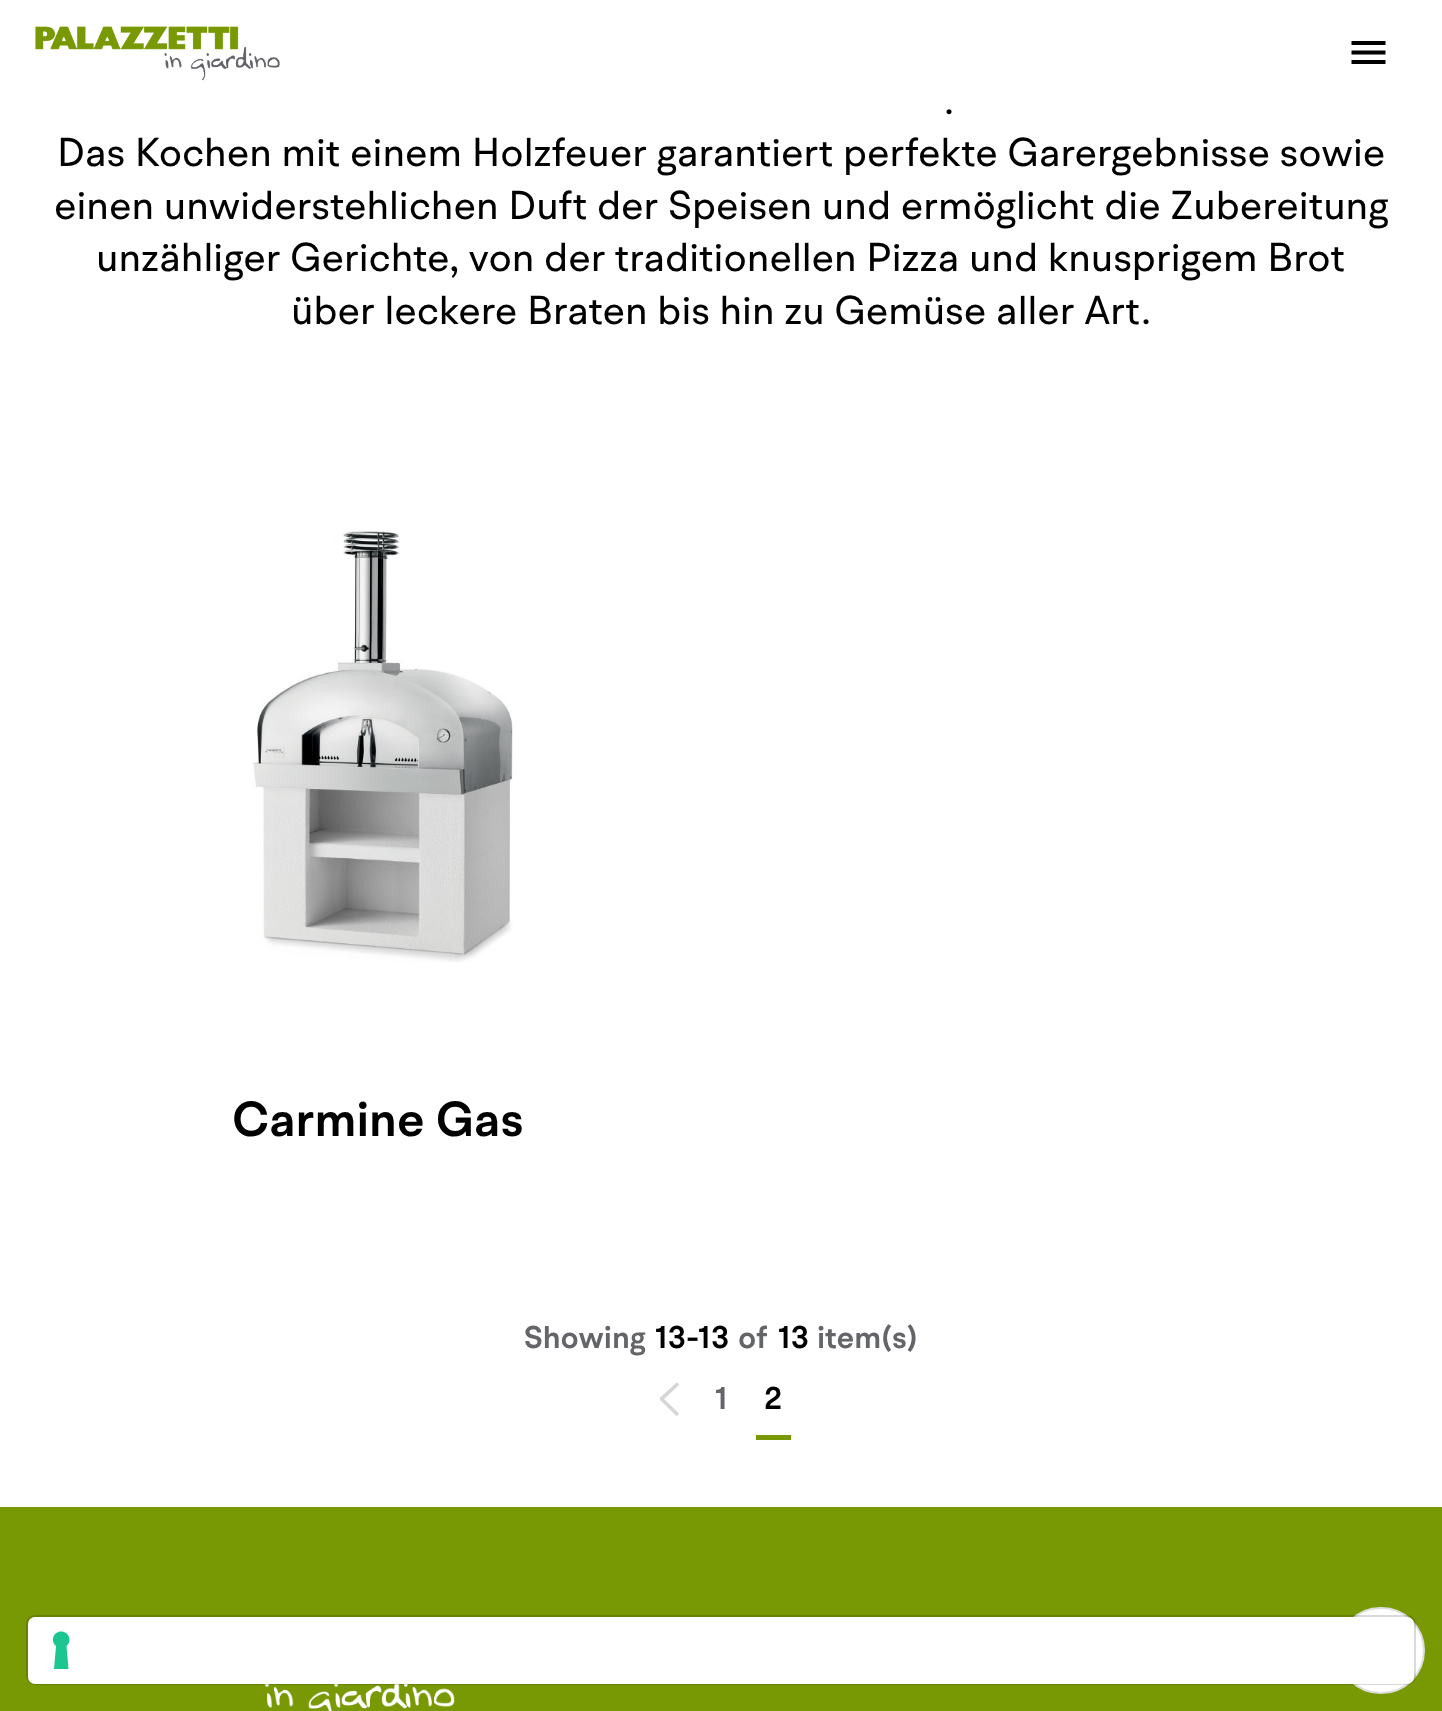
<svg xmlns="http://www.w3.org/2000/svg" xmlns:xlink="http://www.w3.org/1999/xlink" width="1442" height="1711" viewBox="0 0 1442 1711">
<style>
.cls-1{font:40.25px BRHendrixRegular;fill:#000000}
.cls-2{font:49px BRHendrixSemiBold;fill:#000000}
.cls-3{font:31.5px BRHendrixSemiBold;fill:#636569}
.cls-4{font:31.5px BRHendrixSemiBold;fill:#000000}
</style>
<defs>
<clipPath id="clip1"><rect x="660" y="1377" width="19" height="44"/></clipPath>
</defs>
<rect width="100%" height="100%" fill="#ffffff"/>
<image xlink:href="image0.png" x="35" y="26" width="245" height="55"/>
<path fill="#000000" d="M1351.5 41H1385.5V45H1351.5ZM1351.5 54.5V50.5H1385.5V54.5ZM1351.5 64V60H1385.5V64Z"/>
<image xlink:href="image1.png" x="252" y="530" width="261" height="433"/>
<g clip-path="url(#clip1)">
<path fill="none" stroke="#d6d6d6" stroke-width="3.7" d="M678 1415L661.5 1399L678 1383.5"/>
</g>
<rect fill="#789904" x="756" y="1435" width="35" height="5"/>
<rect fill="#789904" x="0" y="1507" width="1442" height="204"/>
<image xlink:href="image2.png" x="264" y="1684" width="191" height="27"/>
<rect fill="#ffffff" stroke="#dddddd" stroke-width="2" x="1338" y="1608" width="86" height="85" rx="42.5"/>
<rect fill="none" stroke="#000000" stroke-opacity="0.15" stroke-width="2" x="27" y="1616" width="1388" height="68" rx="8"/>
<rect fill="#ffffff" x="28" y="1617" width="1386" height="67" rx="7"/>
<path fill="#1cc691" fill-rule="evenodd" d="M61 1631.5C69 1631.5 72.5 1641 66.5 1646L68.5 1669H54L56 1646C50 1641 53.5 1631.5 61 1631.5Z"/>
<text class="cls-1" x="944" y="114">.</text>
<text class="cls-1" x="57" y="166">Das Kochen mit einem Holzfeuer garantiert perfekte Garergebnisse sowie</text>
<text class="cls-1" x="54" y="219">einen unwiderstehlichen Duft der Speisen und ermöglicht die Zubereitung</text>
<text class="cls-1" x="96" y="271">unzähliger Gerichte, von der traditionellen Pizza und knusprigem Brot</text>
<text class="cls-1" x="291" y="324">über leckere Braten bis hin zu Gemüse aller Art.</text>
<text class="cls-2" x="232" y="1136">Carmine Gas</text>
<text class="cls-3" x="524" y="1348">Showing</text>
<text class="cls-4" x="654" y="1348">13-13</text>
<text class="cls-3" x="738" y="1348">of</text>
<text class="cls-4" x="777" y="1348">13</text>
<text class="cls-3" x="817" y="1348">item(s)</text>
<text class="cls-3" x="714" y="1409">1</text>
<text class="cls-4" x="764" y="1409">2</text>
</svg>
